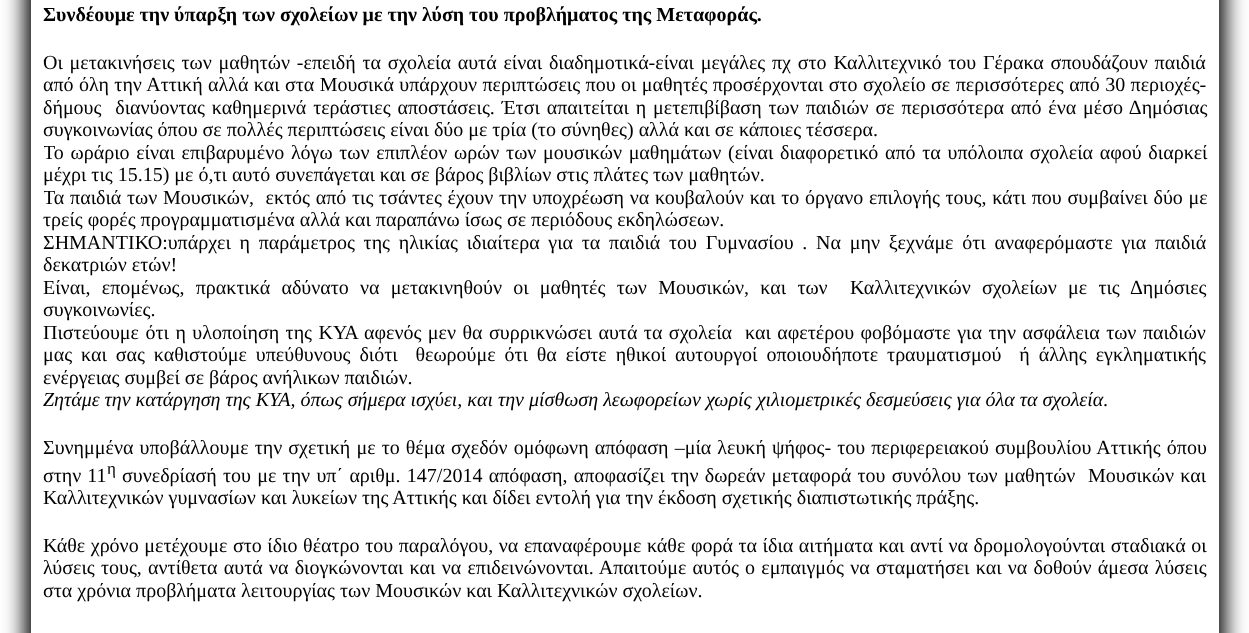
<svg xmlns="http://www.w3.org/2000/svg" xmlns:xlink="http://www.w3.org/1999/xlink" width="1249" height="633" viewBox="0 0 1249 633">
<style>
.cls-1{font:bold 20px Liberation Serif;fill:#000000}
.cls-2{font:20px Liberation Serif;fill:#000000}
.cls-3{font:italic 20px Liberation Serif;fill:#000000}
.cls-4{font:17px Liberation Serif;fill:#000000}
</style>
<defs>
<clipPath id="clip1"><rect x="44" y="0" width="1164" height="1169"/></clipPath>
</defs>
<rect width="100%" height="100%" fill="#ffffff"/>
<rect fill="#000000" filter="blur(10.5px)" x="25" y="-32" width="1200" height="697"/>
<rect fill="#ffffff" x="31" y="0" width="1188" height="633"/>
<text class="cls-1" x="43" y="21">Συνδέουμε την ύπαρξη των σχολείων με την λύση του προβλήματος της Μεταφοράς.</text>
<text class="cls-2" xml:space="preserve"><tspan x="43" y="69" word-spacing="1.8">Οι μετακινήσεις των μαθητών -επειδή τα σχολεία αυτά είναι διαδημοτικά-είναι μεγάλες πχ στο Καλλιτεχνικό του Γέρακα σπουδάζουν παιδιά</tspan><tspan x="43" y="91" word-spacing="0.4">από όλη την Αττική αλλά και στα Μουσικά υπάρχουν περιπτώσεις που οι μαθητές προσέρχονται στο σχολείο σε περισσότερες από 30 περιοχές-</tspan><tspan x="43" y="114" word-spacing="1.9">δήμους  διανύοντας καθημερινά τεράστιες αποστάσεις. Έτσι απαιτείται η μετεπιβίβαση των παιδιών σε περισσότερα από ένα μέσο Δημόσιας</tspan><tspan x="43" y="136">συγκοινωνίας όπου σε πολλές περιπτώσεις είναι δύο με τρία (το σύνηθες) αλλά και σε κάποιες τέσσερα.</tspan></text>
<g clip-path="url(#clip1)">
<text class="cls-2" x="43" y="159" word-spacing="1.7">Το ωράριο είναι επιβαρυμένο λόγω των επιπλέον ωρών των μουσικών μαθημάτων (είναι διαφορετικό από τα υπόλοιπα σχολεία αφού διαρκεί</text>
</g>
<text class="cls-2" x="43" y="181">μέχρι τις 15.15) με ό,τι αυτό συνεπάγεται και σε βάρος βιβλίων στις πλάτες των μαθητών.</text>
<g clip-path="url(#clip1)">
<text class="cls-2" xml:space="preserve" x="43" y="204" word-spacing="0.75">Τα παιδιά των Μουσικών,  εκτός από τις τσάντες έχουν την υποχρέωση να κουβαλούν και το όργανο επιλογής τους, κάτι που συμβαίνει δύο με</text>
</g>
<text class="cls-2" xml:space="preserve"><tspan x="43" y="226">τρείς φορές προγραμματισμένα αλλά και παραπάνω ίσως σε περιόδους εκδηλώσεων.</tspan><tspan x="43" y="249" word-spacing="3.75">ΣΗΜΑΝΤΙΚΟ:υπάρχει η παράμετρος της ηλικίας ιδιαίτερα για τα παιδιά του Γυμνασίου . Να μην ξεχνάμε ότι αναφερόμαστε για παιδιά</tspan><tspan x="43" y="271">δεκατριών ετών!</tspan><tspan x="43" y="294" word-spacing="6.25">Είναι, επομένως, πρακτικά αδύνατο να μετακινηθούν οι μαθητές των Μουσικών, και των  Καλλιτεχνικών σχολείων με τις Δημόσιες</tspan><tspan x="43" y="316">συγκοινωνίες.</tspan><tspan x="43" y="339" word-spacing="1.5">Πιστεύουμε ότι η υλοποίηση της ΚΥΑ αφενός μεν θα συρρικνώσει αυτά τα σχολεία  και αφετέρου φοβόμαστε για την ασφάλεια των παιδιών</tspan><tspan x="43" y="361" word-spacing="3.9">μας και σας καθιστούμε υπεύθυνους διότι  θεωρούμε ότι θα είστε ηθικοί αυτουργοί οποιουδήποτε τραυματισμού  ή άλλης εγκληματικής</tspan><tspan x="43" y="384">ενέργειας συμβεί σε βάρος ανήλικων παιδιών.</tspan></text>
<text class="cls-3" x="43" y="406">Ζητάμε την κατάργηση της ΚΥΑ, όπως σήμερα ισχύει, και την μίσθωση λεωφορείων χωρίς χιλιομετρικές δεσμεύσεις για όλα τα σχολεία</text>
<text class="cls-2" x="1103" y="406">.</text>
<text class="cls-2"><tspan x="43" y="454" word-spacing="1.1">Συνημμένα υποβάλλουμε την σχετική με το θέμα σχεδόν ομόφωνη απόφαση –μία λευκή ψήφος- του περιφερειακού συμβουλίου Αττικής όπου</tspan><tspan x="43" y="482" word-spacing="1">στην 11</tspan></text>
<text class="cls-4" x="107" y="474">η</text>
<text class="cls-2" xml:space="preserve" x="122" y="482" word-spacing="1.3">συνεδρίασή του με την υπ΄ αριθμ. 147/2014 απόφαση, αποφασίζει την δωρεάν μεταφορά του συνόλου των μαθητών  Μουσικών και</text>
<text class="cls-2" x="43" y="504">Καλλιτεχνικών γυμνασίων και λυκείων της Αττικής και δίδει εντολή για την έκδοση σχετικής διαπιστωτικής πράξης.</text>
<text class="cls-2"><tspan x="43" y="552" word-spacing="0.6">Κάθε χρόνο μετέχουμε στο ίδιο θέατρο του παραλόγου, να επαναφέρουμε κάθε φορά τα ίδια αιτήματα και αντί να δρομολογούνται σταδιακά οι</tspan><tspan x="43" y="574" word-spacing="1.25">λύσεις τους, αντίθετα αυτά να διογκώνονται και να επιδεινώνονται. Απαιτούμε αυτός ο εμπαιγμός να σταματήσει και να δοθούν άμεσα λύσεις</tspan><tspan x="43" y="597">στα χρόνια προβλήματα λειτουργίας των Μουσικών και Καλλιτεχνικών σχολείων.</tspan></text>
</svg>
